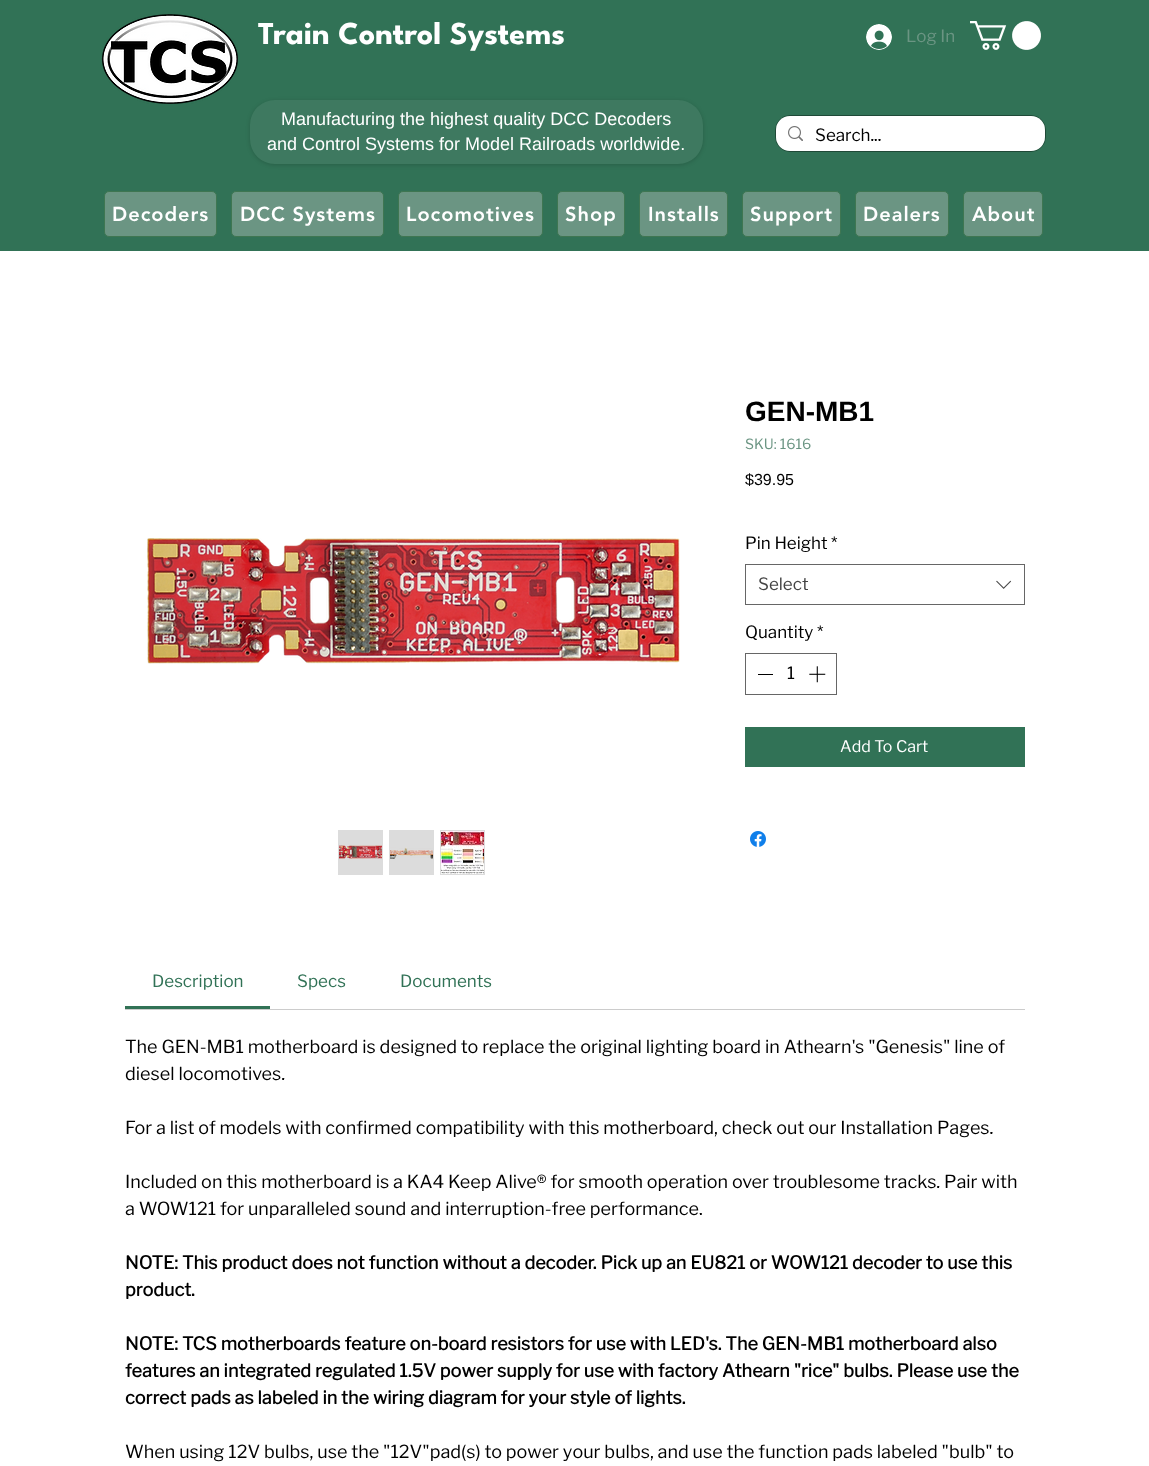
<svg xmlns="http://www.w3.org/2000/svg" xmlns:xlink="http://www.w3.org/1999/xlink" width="1149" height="1466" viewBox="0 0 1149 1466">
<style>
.cls-1{font:bold 32px League Spartan;fill:#ffffff}
.cls-2{font:17px Libre Franklin;fill:#6b9583}
.cls-3{font:18px Liberation Sans;fill:#ffffff}
.cls-4{font:17px Libre Franklin;fill:#000000}
.cls-5{font:900 20px 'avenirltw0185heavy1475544';letter-spacing:1px;fill:#ffffff}
.cls-6{font:bold 28px Liberation Sans;fill:#000000}
.cls-7{font:14px Libre Franklin;fill:#6b9583}
.cls-8{font:16px Liberation Sans;fill:#000000}
.cls-9{font:17px Libre Franklin;fill:#444444}
.cls-10{font:16px Libre Franklin;fill:#ffffff}
.cls-11{font:17px Libre Franklin;fill:#317256}
.cls-12{font:18px Libre Franklin;fill:#000000}
.cls-13{font:bold 18px Libre Franklin;fill:#000000}
</style>
<defs>
<clipPath id="clip1"><path d="M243 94H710V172H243ZM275 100H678C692 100 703 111 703 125V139C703 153 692 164 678 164H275C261 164 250 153 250 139V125C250 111 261 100 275 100Z" clip-rule="evenodd"/></clipPath>
</defs>
<rect width="100%" height="100%" fill="#ffffff"/>
<rect fill="#317256" x="0" y="0" width="1149" height="251"/>
<image xlink:href="image0.png" x="101" y="14" width="137" height="90"/>
<image xlink:href="image1.png" x="866" y="24" width="26" height="26"/>
<image xlink:href="image2.png" x="970" y="21" width="71" height="29"/>
<g clip-path="url(#clip1)">
<rect fill="#000000" fill-opacity="0.16" filter="blur(2px)" x="250" y="101" width="453" height="64" rx="25"/>
</g>
<rect fill="#6b9583" fill-opacity="0.23" x="250" y="100" width="453" height="64" rx="25"/>
<rect fill="none" stroke="#1f4937" x="775.5" y="115.5" width="270" height="36" rx="14.5"/>
<rect fill="#ffffff" x="776" y="116" width="269" height="35" rx="14"/>
<image xlink:href="image3.png" x="788" y="126" width="15" height="15"/>
<rect fill="#6b9583" stroke="#3f7652" x="104.5" y="191.5" width="112" height="45" rx="4.5"/>
<rect fill="#6b9583" stroke="#3f7652" x="231.5" y="191.5" width="152" height="45" rx="4.5"/>
<rect fill="#6b9583" stroke="#3f7652" x="398.5" y="191.5" width="144" height="45" rx="4.5"/>
<rect fill="#6b9583" stroke="#3f7652" x="557.5" y="191.5" width="67" height="45" rx="4.5"/>
<rect fill="#6b9583" stroke="#3f7652" x="639.5" y="191.5" width="88" height="45" rx="4.5"/>
<rect fill="#6b9583" stroke="#3f7652" x="742.5" y="191.5" width="98" height="45" rx="4.5"/>
<rect fill="#6b9583" stroke="#3f7652" x="855.5" y="191.5" width="93" height="45" rx="4.5"/>
<rect fill="#6b9583" stroke="#3f7652" x="963.5" y="191.5" width="79" height="45" rx="4.5"/>
<image xlink:href="image4.png" x="147" y="538" width="533" height="126"/>
<rect fill="#dcdcdc" x="338" y="830" width="45" height="45"/>
<image xlink:href="image5.png" x="339" y="845" width="43" height="14"/>
<rect fill="#dcdcdc" x="389" y="830" width="45" height="45"/>
<image xlink:href="image6.png" x="390" y="847" width="43" height="12"/>
<rect fill="#dcdcdc" x="440" y="830" width="45" height="45"/>
<image xlink:href="image7.png" x="441" y="831" width="43" height="43"/>
<rect fill="none" stroke="#666666" x="745.5" y="564.5" width="279" height="40"/>
<image xlink:href="image8.png" x="996" y="580" width="16" height="9"/>
<rect fill="none" stroke="#666666" x="745.5" y="653.5" width="91" height="41"/>
<rect fill="#000000" x="758" y="674" width="15" height="1"/>
<image xlink:href="image9.png" x="809" y="666" width="17" height="17"/>
<rect fill="#317256" x="745" y="727" width="280" height="40"/>
<image xlink:href="image10.png" x="750" y="831" width="16" height="16"/>
<rect fill="#cccccc" x="125" y="1009" width="900" height="1"/>
<rect fill="#317256" x="125" y="1006" width="145" height="3"/>
<text class="cls-1" x="258" y="44">Train Control Systems</text>
<text class="cls-2" x="906" y="42">Log In</text>
<text class="cls-3" x="281" y="125">Manufacturing the highest quality DCC Decoders</text>
<text class="cls-3" x="267" y="150">and Control Systems for Model Railroads worldwide.</text>
<text class="cls-4" x="815" y="141">Search...</text>
<text class="cls-5" x="112" y="221">Decoders</text>
<text class="cls-5" x="240" y="221">DCC Systems</text>
<text class="cls-5" x="406" y="221">Locomotives</text>
<text class="cls-5" x="565" y="221">Shop</text>
<text class="cls-5" x="648" y="221">Installs</text>
<text class="cls-5" x="750" y="221">Support</text>
<text class="cls-5" x="863" y="221">Dealers</text>
<text class="cls-5" x="972" y="221">About</text>
<text class="cls-6" x="745" y="421">GEN-MB1</text>
<text class="cls-7" x="745" y="449">SKU: 1616</text>
<text class="cls-8" x="745" y="485">$39.95</text>
<text class="cls-4" x="745" y="549">Pin Height</text>
<text class="cls-4" x="831" y="549">*</text>
<text class="cls-9" x="758" y="590">Select</text>
<text class="cls-4" x="745" y="638">Quantity</text>
<text class="cls-4" x="817" y="638">*</text>
<text class="cls-4" x="787" y="679">1</text>
<text class="cls-10" x="840" y="752">Add To Cart</text>
<text class="cls-11" x="152" y="987">Description</text>
<text class="cls-11" x="297" y="987">Specs</text>
<text class="cls-11" x="400" y="987">Documents</text>
<text class="cls-12"><tspan x="125" y="1053">The GEN-MB1 motherboard is designed to replace the original lighting board in Athearn's "Genesis" line of</tspan><tspan x="125" y="1080">diesel locomotives.</tspan></text>
<text class="cls-12" x="125" y="1134">For a list of models with confirmed compatibility with this motherboard, check out our Installation Pages.</text>
<text class="cls-12"><tspan x="125" y="1188">Included on this motherboard is a KA4 Keep Alive® for smooth operation over troublesome tracks. Pair with</tspan><tspan x="125" y="1215">a WOW121 for unparalleled sound and interruption-free performance.</tspan></text>
<text class="cls-13"><tspan x="125" y="1269">NOTE: This product does not function without a decoder. Pick up an EU821 or WOW121 decoder to use this</tspan><tspan x="125" y="1296">product.</tspan></text>
<text class="cls-13"><tspan x="125" y="1350">NOTE: TCS motherboards feature on-board resistors for use with LED's. The GEN-MB1 motherboard also</tspan><tspan x="125" y="1377">features an integrated regulated 1.5V power supply for use with factory Athearn "rice" bulbs. Please use the</tspan><tspan x="125" y="1404">correct pads as labeled in the wiring diagram for your style of lights.</tspan></text>
<text class="cls-12" x="125" y="1458">When using 12V bulbs, use the "12V"pad(s) to power your bulbs, and use the function pads labeled "bulb" to</text>
</svg>
